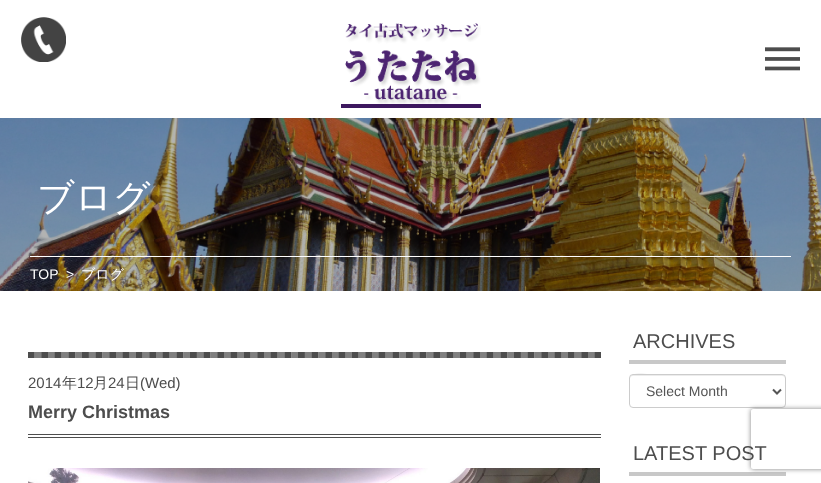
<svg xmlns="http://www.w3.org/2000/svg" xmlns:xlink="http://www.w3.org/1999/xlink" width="821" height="483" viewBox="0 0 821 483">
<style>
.cls-1{font:500 37px WenQuanYi Zen Hei;fill:#ffffff}
.cls-2{font:14px Liberation Sans;fill:#ffffff}
.cls-3{font:500 14px WenQuanYi Zen Hei;fill:#ffffff}
.cls-4{font:15px Liberation Sans;fill:#4d4d4d}
.cls-5{font:500 15px WenQuanYi Zen Hei;fill:#4d4d4d}
.cls-6{font:bold 18px Liberation Sans;fill:#4d4d4d}
.cls-7{font:20px Liberation Sans;fill:#4d4d4d}
.cls-8{font:14px Liberation Sans;fill:#555555}
</style>
<defs>
<clipPath id="clip1"><path d="M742 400H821V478H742ZM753 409H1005C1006 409 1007 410 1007 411V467C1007 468 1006 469 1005 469H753C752 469 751 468 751 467V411C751 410 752 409 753 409Z" clip-rule="evenodd"/></clipPath>
</defs>
<rect width="100%" height="100%" fill="#ffffff"/>
<image xlink:href="image0.png" x="21" y="17" width="45" height="45"/>
<rect fill="#3d185f" x="341" y="104" width="140" height="4"/>
<image xlink:href="image1.png" x="345" y="23" width="136" height="81"/>
<image xlink:href="image2.png" x="765" y="47" width="35" height="24"/>
<image xlink:href="image3.png" x="0" y="118" width="821" height="173"/>
<rect fill="#ffffff" x="30" y="256" width="761" height="1"/>
<image xlink:href="image4.png" x="28" y="352" width="573" height="6"/>
<rect fill="#4d4d4d" x="28" y="434" width="573" height="1"/>
<rect fill="#4d4d4d" x="28" y="437" width="573" height="1"/>
<image xlink:href="image5.png" x="28" y="468" width="572" height="15"/>
<rect fill="#c8c8c8" x="629" y="360" width="157" height="4"/>
<path fill="#ececec" d="M633 376H782C784 376 785 377 785 379C785 377 785 376 783 375H658C650 375 630 370 630 379C630 377 631 376 633 376Z"/>
<rect fill="none" stroke="#cccccc" x="629.5" y="374.5" width="156" height="33" rx="3.5"/>
<path fill="none" stroke="#555555" stroke-width="2" d="M773 389.5L777 393.5L781 389.5"/>
<rect fill="#c8c8c8" x="629" y="472" width="157" height="4"/>
<g clip-path="url(#clip1)">
<rect fill="#808080" filter="blur(2.5px)" x="751" y="409" width="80" height="60" rx="2"/>
</g>
<text class="cls-1" x="37" y="210">ブログ</text>
<text class="cls-2" x="30" y="279">TOP</text>
<text class="cls-2" x="66" y="279">&gt;</text>
<text class="cls-3" x="81" y="279">ブログ</text>
<text class="cls-4" x="28" y="388">2014</text>
<text class="cls-5" x="62" y="388">年</text>
<text class="cls-4" x="77" y="388">12</text>
<text class="cls-5" x="93" y="388">月</text>
<text class="cls-4" x="108" y="388">24</text>
<text class="cls-5" x="125" y="388">日</text>
<text class="cls-4" x="140" y="388">(Wed)</text>
<text class="cls-6" x="28" y="418">Merry Christmas</text>
<text class="cls-7" x="633" y="348">ARCHIVES</text>
<text class="cls-8" x="646" y="396">Select Month</text>
<text class="cls-7" x="633" y="460">LATEST POST</text>
</svg>
